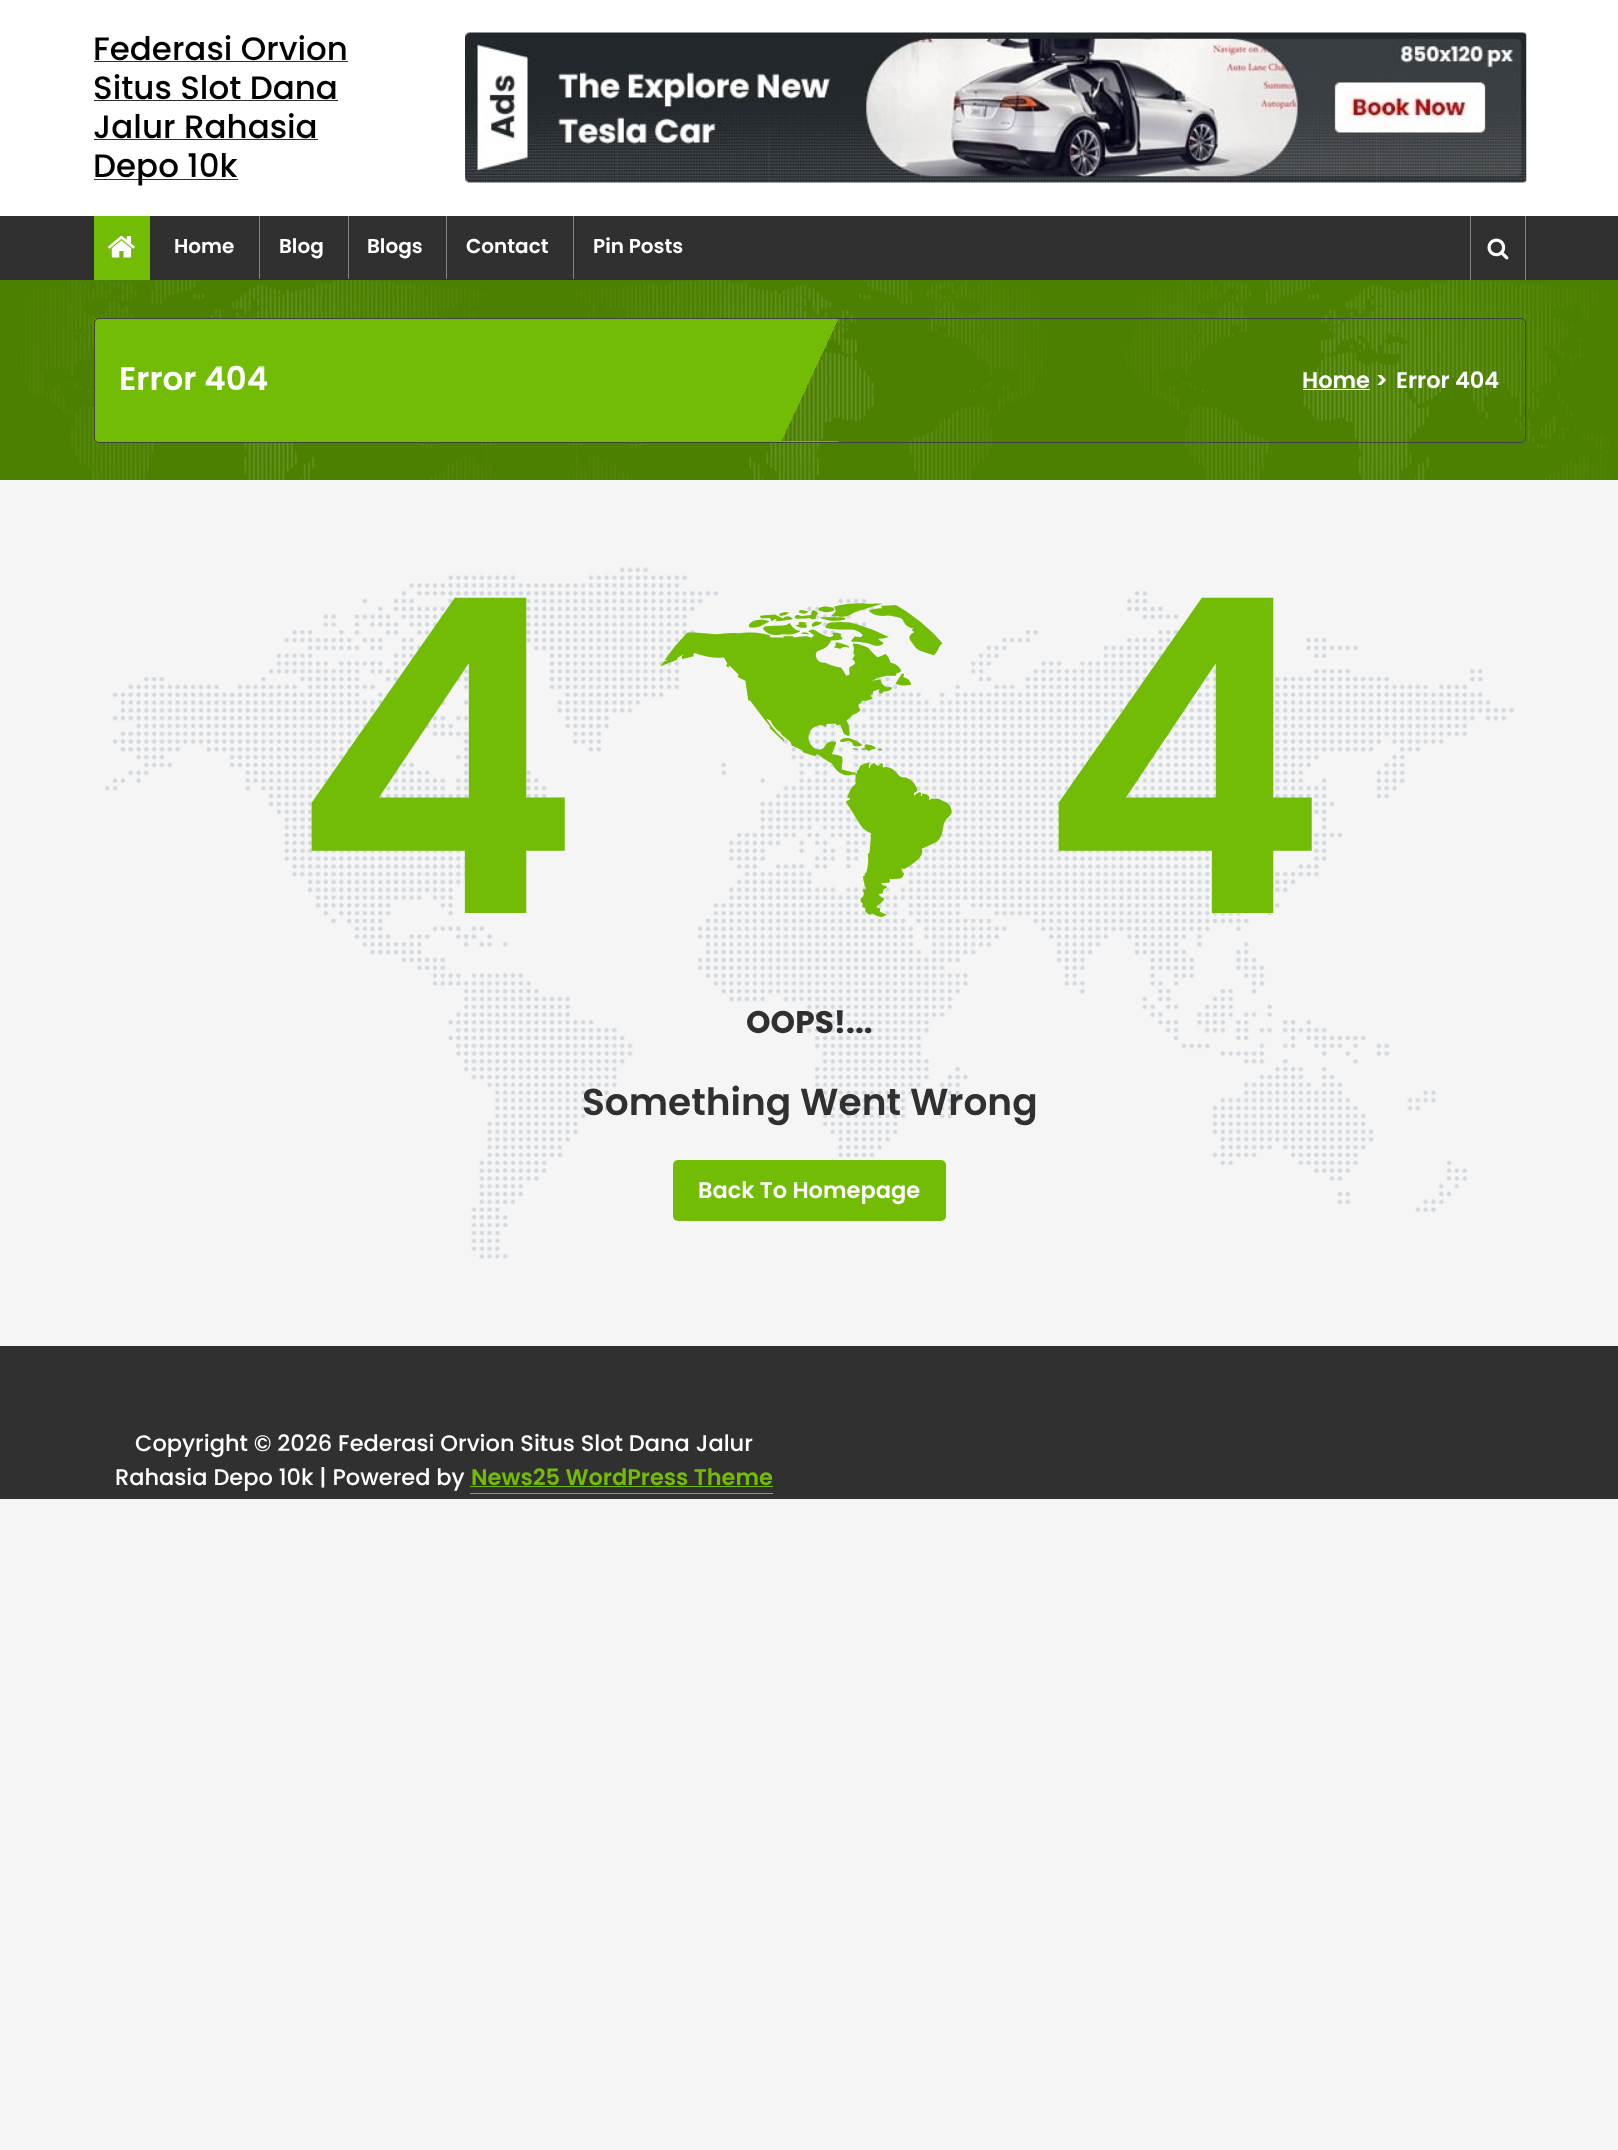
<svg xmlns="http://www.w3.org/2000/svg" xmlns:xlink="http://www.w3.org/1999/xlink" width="1618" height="2150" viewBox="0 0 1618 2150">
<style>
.cls-1{font:500 32.5px Poppins;fill:#000000}
.cls-2{font:600 20px Poppins;fill:#ffffff}
.cls-3{font:600 32.5px Poppins;fill:#ffffff}
.cls-4{font:600 22.5px Poppins;fill:#ffffff}
.cls-5{font:600 438px Poppins;fill:#72bc05}
.cls-6{font:bold 31.25px Poppins;fill:#303030}
.cls-7{font:600 37.5px Poppins;fill:#303030}
.cls-8{font:500 22.5px Poppins;fill:#ffffff}
.cls-9{font:600 22.5px Poppins;fill:#72bc05}
</style>
<defs>
<linearGradient id="g1" gradientUnits="userSpaceOnUse" x1="199" y1="95" x2="1421" y2="665"><stop offset="0.5" stop-color="#72bc05"/><stop offset="0.5" stop-color="#72bc05" stop-opacity="0"/></linearGradient>
<clipPath id="clip1"><rect x="94" y="318" width="1432" height="125" rx="5"/></clipPath>
<linearGradient id="g2" gradientUnits="userSpaceOnUse" x1="199" y1="218" x2="1421" y2="787"><stop offset="0.5" stop-color="#72bc05"/><stop offset="0.5" stop-color="#72bc05" stop-opacity="0"/></linearGradient>
</defs>
<rect width="100%" height="100%" fill="#f5f5f5"/>
<rect fill="#ffffff" x="0" y="0" width="1618" height="216"/>
<rect fill="#303030" x="94" y="61" width="254" height="1"/>
<rect fill="#303030" x="94" y="100" width="244" height="1"/>
<rect fill="#303030" x="94" y="139" width="224" height="1"/>
<rect fill="#303030" x="94" y="179" width="144" height="1"/>
<image xlink:href="image0.png" x="465" y="32" width="1062" height="151"/>
<rect fill="#303030" x="0" y="216" width="1618" height="64"/>
<rect fill="#72bc05" x="94" y="216" width="56" height="64"/>
<image xlink:href="image1.png" x="108" y="236" width="27" height="22"/>
<rect fill="#838383" x="259" y="216" width="1" height="63"/>
<rect fill="#838383" x="348" y="216" width="1" height="63"/>
<rect fill="#838383" x="446" y="216" width="1" height="63"/>
<rect fill="#838383" x="573" y="216" width="1" height="63"/>
<rect fill="#838383" x="1525" y="216" width="1" height="64"/>
<rect fill="#838383" x="1470" y="216" width="1" height="64"/>
<image xlink:href="image2.png" x="1487" y="238" width="22" height="22"/>
<rect fill="#4c8000" x="0" y="280" width="1618" height="200"/>
<image xlink:href="image3.png" x="21" y="280" width="1597" height="200"/>
<rect fill="url(#g1)" x="95" y="319" width="743" height="122"/>
<g clip-path="url(#clip1)">
<rect fill="url(#g2)" x="95" y="441" width="743" height="2"/>
</g>
<rect fill="none" stroke="#424242" x="94.5" y="318.5" width="1431" height="124" rx="4.5"/>
<rect fill="#ffffff" x="1303" y="389" width="67" height="1"/>
<image xlink:href="image4.png" x="105" y="567" width="1409" height="692"/>
<image xlink:href="image5.png" x="660" y="603" width="292" height="314"/>
<image xlink:href="image6.png" x="660" y="603" width="292" height="314"/>
<rect fill="#72bc05" x="673" y="1160" width="273" height="61" rx="5"/>
<rect fill="#303030" x="0" y="1346" width="1618" height="153"/>
<rect fill="#72bc05" x="470" y="1493" width="303" height="1"/>
<rect fill="#72bc05" x="470" y="1486" width="303" height="1"/>
<text class="cls-1"><tspan x="93" y="60">Federasi Orvion</tspan><tspan x="93" y="99">Situs Slot Dana</tspan><tspan x="93" y="138">Jalur Rahasia</tspan><tspan x="93" y="177">Depo 10k</tspan></text>
<text class="cls-2" x="174" y="253">Home</text>
<text class="cls-2" x="279" y="253">Blog</text>
<text class="cls-2" x="367" y="253">Blogs</text>
<text class="cls-2" x="466" y="253">Contact</text>
<text class="cls-2" x="593" y="253">Pin Posts</text>
<text class="cls-3" x="119" y="390">Error 404</text>
<text class="cls-4" x="1302" y="388">Home &gt;</text>
<text class="cls-4" x="1396" y="388">Error 404</text>
<text class="cls-5" x="291" y="913">4</text>
<text class="cls-5" x="1038" y="913">4</text>
<text class="cls-6" x="746" y="1033">OOPS!...</text>
<text class="cls-7" x="582" y="1115">Something Went Wrong</text>
<text class="cls-4" x="698" y="1198">Back To Homepage</text>
<text class="cls-8" x="135" y="1451">Copyright © 2026 Federasi Orvion Situs Slot Dana Jalur</text>
<text class="cls-8" x="115" y="1485">Rahasia Depo 10k | Powered by</text>
<text class="cls-9" x="471" y="1485">News25 WordPress Theme</text>
</svg>
